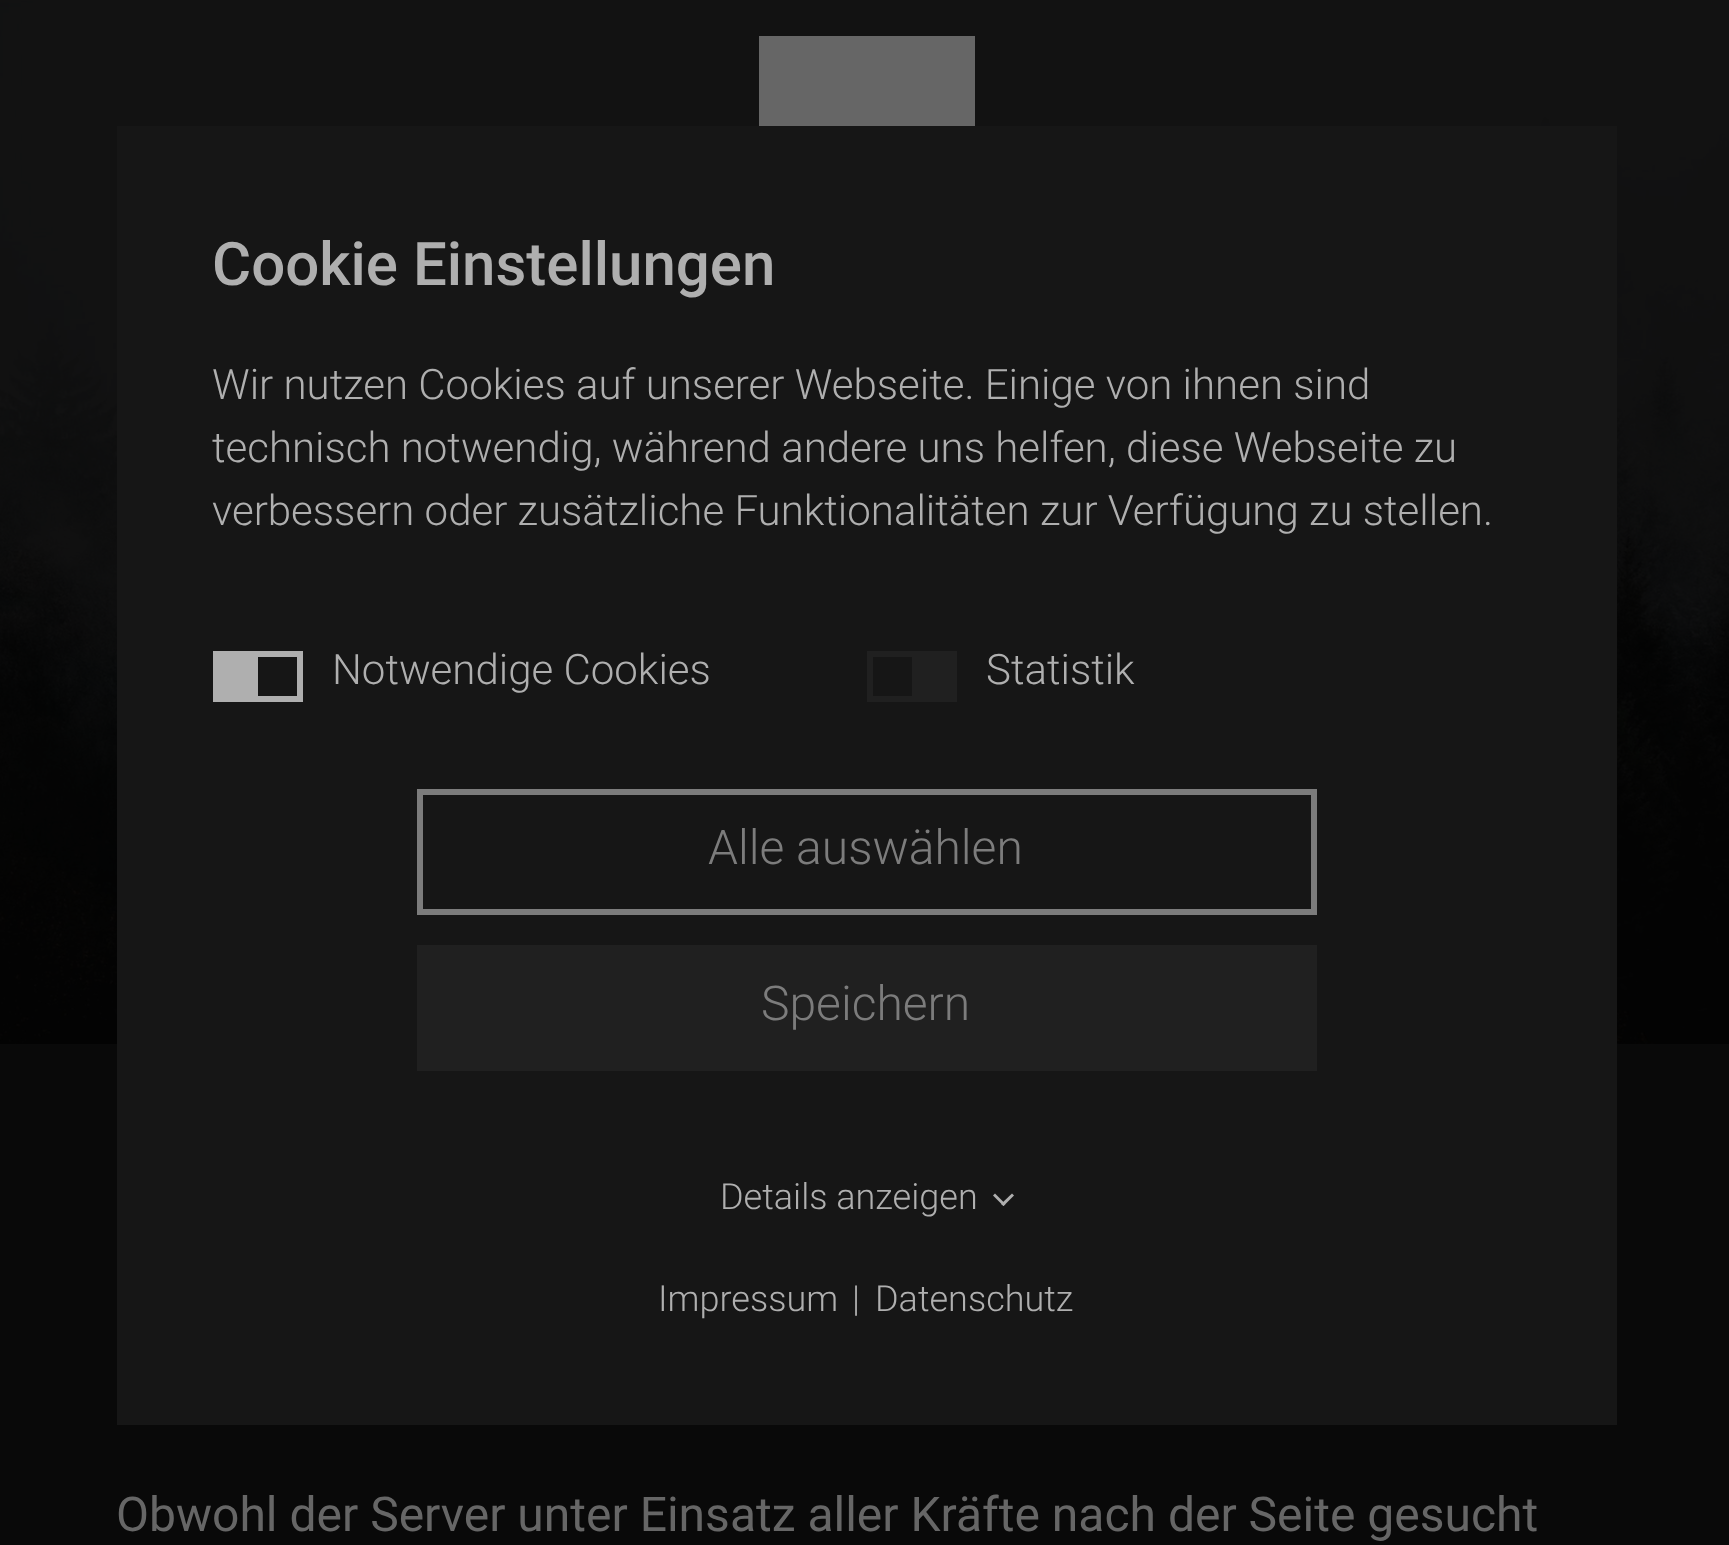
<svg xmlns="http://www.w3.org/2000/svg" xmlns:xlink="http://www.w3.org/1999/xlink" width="1729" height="1545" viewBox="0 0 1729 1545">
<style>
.cls-1{font:500 60px Roboto;fill:#afafaf}
.cls-2{font:300 42px Roboto;fill:#afafaf}
.cls-3{font:300 48px Roboto;fill:#7c7c7c}
.cls-4{font:300 36px Roboto;fill:#afafaf}
.cls-5{font:48px Roboto;fill:#666666}
</style>
<rect width="100%" height="100%" fill="#090909"/>
<image xlink:href="image0.png" x="0" y="0" width="1729" height="1044"/>
<rect fill="#161616" x="117" y="126" width="1500" height="1299"/>
<rect fill="#afafaf" x="213" y="651" width="90" height="51"/>
<rect fill="#161616" x="258" y="657" width="39" height="39"/>
<rect fill="#202020" x="867" y="651" width="90" height="51"/>
<rect fill="#161616" x="873" y="657" width="39" height="39"/>
<rect fill="none" stroke="#7c7c7c" stroke-width="6" x="420" y="792" width="894" height="120"/>
<rect fill="#202020" x="417" y="945" width="900" height="126"/>
<path fill="#afafaf" d="M1012 1193.5L1014 1195.5L1003.5 1206L1001 1204Z"/>
<path fill="#afafaf" d="M995 1193.5L1005.5 1204L1003.5 1206L993 1195.5Z"/>
<rect fill="#666666" x="759" y="36" width="216" height="90"/>
<text class="cls-1" x="212" y="285">Cookie Einstellungen</text>
<text class="cls-2"><tspan x="212" y="399">Wir nutzen Cookies auf unserer Webseite. Einige von ihnen sind</tspan><tspan x="212" y="462">technisch notwendig, während andere uns helfen, diese Webseite zu</tspan><tspan x="212" y="525">verbessern oder zusätzliche Funktionalitäten zur Verfügung zu stellen.</tspan></text>
<text class="cls-2" x="332" y="684">Notwendige Cookies</text>
<text class="cls-2" x="986" y="684">Statistik</text>
<text class="cls-3" x="708" y="864">Alle auswählen</text>
<text class="cls-3" x="761" y="1020">Speichern</text>
<text class="cls-4" x="720" y="1209">Details anzeigen</text>
<text class="cls-4" x="658" y="1311">Impressum</text>
<text class="cls-4" x="852" y="1311">|</text>
<text class="cls-4" x="875" y="1311">Datenschutz</text>
<text class="cls-5" x="116" y="1531">Obwohl der Server unter Einsatz aller Kräfte nach der Seite gesucht</text>
</svg>
